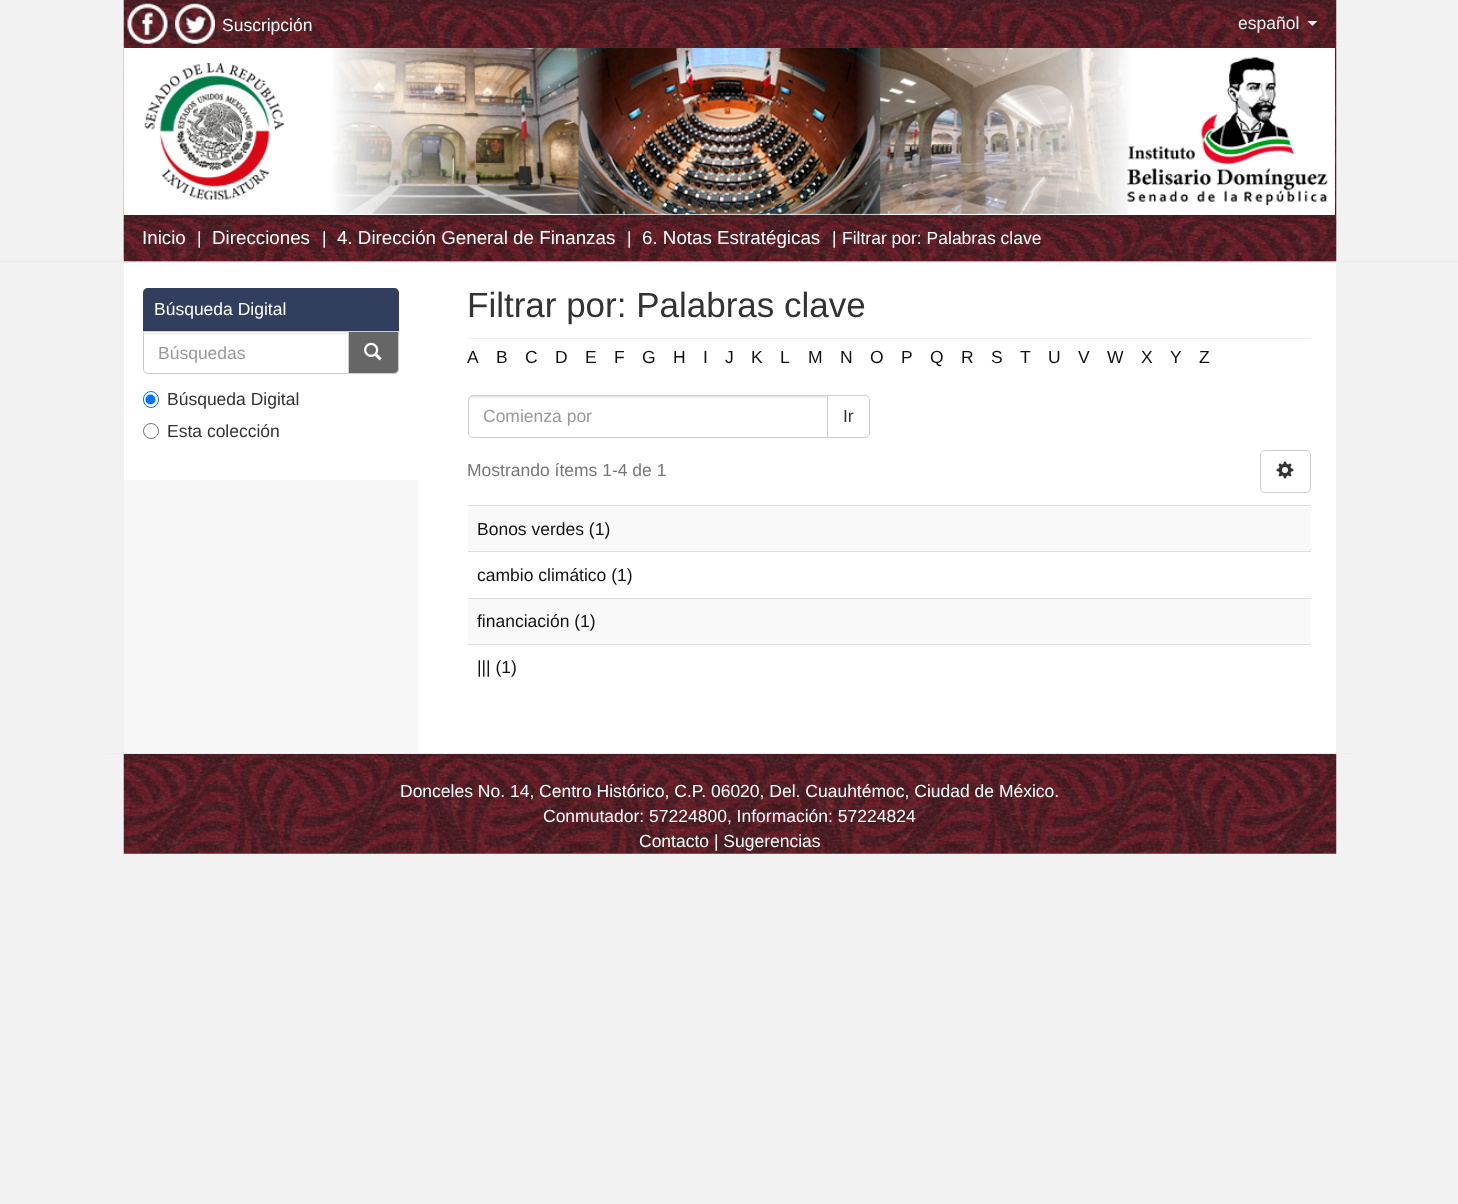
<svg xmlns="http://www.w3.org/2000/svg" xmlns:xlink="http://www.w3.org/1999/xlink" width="1458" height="1204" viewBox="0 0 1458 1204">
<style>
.cls-1{font:17.5px Liberation Sans;fill:#ffffff}
.cls-2{font:17.5px Liberation Sans;fill:#eeeeee}
.cls-3{font:18.75px Liberation Sans;fill:#ffffff}
.cls-4{font:17.5px Liberation Sans;fill:#999999}
.cls-5{font:17.5px Liberation Sans;fill:#333333}
.cls-6{font:35px Liberation Sans;fill:#333333}
.cls-7{font:17.5px Liberation Sans;fill:#111111}
.cls-8{font:17.5px Liberation Sans;fill:#777777}
</style>
<rect width="100%" height="100%" fill="#f2f2f2"/>
<rect fill="#5e2129" x="124" y="47" width="1212" height="1"/>
<image xlink:href="image0.png" x="123" y="0" width="1214" height="48"/>
<image xlink:href="image1.png" x="127" y="3" width="41" height="41"/>
<image xlink:href="image2.png" x="175" y="3" width="40" height="41"/>
<path fill="#eeeeee" d="M1307.5 21H1317.5L1312.5 26Z"/>
<image xlink:href="image3.png" x="123" y="48" width="1214" height="167"/>
<image xlink:href="image4.png" x="123" y="48" width="1212" height="167"/>
<rect fill="#eaeaea" x="0" y="261" width="1458" height="1"/>
<image xlink:href="image5.png" x="123" y="215" width="1214" height="47"/>
<image xlink:href="image6.png" x="123" y="215" width="1214" height="47"/>
<image xlink:href="image9.png" x="123" y="752" width="1214" height="102"/>
<rect fill="#f7f7f7" x="124" y="480" width="294" height="273"/>
<rect fill="#ffffff" x="124" y="263" width="294" height="217"/>
<path fill="#313e5d" d="M148 288H394C397 288 399 290 399 293V331H143V293C143 290 145 288 148 288Z"/>
<path fill="#666666" stroke="#cccccc" d="M348.5 331.5H398.5V369C398.5 371.5 396.5 373.5 394 373.5H348.5Z"/>
<path fill="#ffffff" d="M143 331H349V374H148C145 374 143 372 143 369Z"/>
<rect fill="#ececec" x="144" y="333" width="204" height="1"/>
<path fill="none" stroke="#cccccc" d="M143.5 331.5H348.5V373.5H148C145.5 373.5 143.5 371.5 143.5 369Z"/>
<image xlink:href="image7.png" x="364" y="342" width="18" height="19"/>
<rect fill="none" stroke="#0075ff" x="143.5" y="391.5" width="15" height="16" rx="7.5"/>
<circle fill="#0075ff" cx="150.5" cy="399.5" r="5"/>
<circle fill="none" stroke="#767676" cx="151" cy="431" r="7.5"/>
<rect fill="#ffffff" x="418" y="263" width="918" height="490"/>
<rect fill="#eeeeee" x="468" y="338" width="843" height="1"/>
<path fill="none" stroke="#cccccc" d="M826.5 395.5H865C867.5 395.5 869.5 397.5 869.5 400V433C869.5 435.5 867.5 437.5 865 437.5H826.5Z"/>
<path fill="#ffffff" d="M473 395H828V438H473C470 438 468 436 468 433V400C468 397 470 395 473 395Z"/>
<path fill="#ececec" d="M472 398H826V396H473C470 396 469 398 469 401C469 399 470 398 472 398Z"/>
<path fill="none" stroke="#cccccc" d="M473 395.5H827.5V437.5H473C470.5 437.5 468.5 435.5 468.5 433V400C468.5 397.5 470.5 395.5 473 395.5Z"/>
<rect fill="none" stroke="#cccccc" x="1260.5" y="450.5" width="50" height="42" rx="4.5"/>
<image xlink:href="image8.png" x="1276" y="461" width="18" height="18"/>
<rect fill="#f9f9f9" x="468" y="506" width="843" height="45"/>
<rect fill="#dddddd" x="468" y="505" width="843" height="1"/>
<rect fill="#dddddd" x="468" y="551" width="843" height="1"/>
<rect fill="#f9f9f9" x="468" y="599" width="843" height="45"/>
<rect fill="#dddddd" x="468" y="598" width="843" height="1"/>
<rect fill="#dddddd" x="468" y="644" width="843" height="1"/>
<rect fill="#eeeeee" x="105" y="753" width="1250" height="1"/>
<text class="cls-1" x="222" y="31">Suscripción</text>
<text class="cls-2" x="1238" y="29">español</text>
<text class="cls-3" x="142" y="244">Inicio</text>
<text class="cls-1" x="197" y="244">|</text>
<text class="cls-3" x="212" y="244">Direcciones</text>
<text class="cls-1" x="322" y="244">|</text>
<text class="cls-3" x="337" y="244">4. Dirección General de Finanzas</text>
<text class="cls-1" x="627" y="244">|</text>
<text class="cls-3" x="642" y="244">6. Notas Estratégicas</text>
<text class="cls-1" x="832" y="244">|</text>
<text class="cls-1" x="842" y="244">Filtrar por: Palabras clave</text>
<text class="cls-1" x="154" y="315">Búsqueda Digital</text>
<text class="cls-4" x="158" y="359">Búsquedas</text>
<text class="cls-5"><tspan x="167" y="405">Búsqueda Digital</tspan><tspan x="167" y="437">Esta colección</tspan></text>
<text class="cls-6" x="467" y="317">Filtrar por: Palabras clave</text>
<text class="cls-7" x="467" y="363">A</text>
<text class="cls-7" x="496" y="363">B</text>
<text class="cls-7" x="525" y="363">C</text>
<text class="cls-7" x="555" y="363">D</text>
<text class="cls-7" x="585" y="363">E</text>
<text class="cls-7" x="614" y="363">F</text>
<text class="cls-7" x="642" y="363">G</text>
<text class="cls-7" x="673" y="363">H</text>
<text class="cls-7" x="703" y="363">I</text>
<text class="cls-7" x="725" y="363">J</text>
<text class="cls-7" x="751" y="363">K</text>
<text class="cls-7" x="780" y="363">L</text>
<text class="cls-7" x="808" y="363">M</text>
<text class="cls-7" x="840" y="363">N</text>
<text class="cls-7" x="870" y="363">O</text>
<text class="cls-7" x="901" y="363">P</text>
<text class="cls-7" x="930" y="363">Q</text>
<text class="cls-7" x="961" y="363">R</text>
<text class="cls-7" x="991" y="363">S</text>
<text class="cls-7" x="1020" y="363">T</text>
<text class="cls-7" x="1048" y="363">U</text>
<text class="cls-7" x="1078" y="363">V</text>
<text class="cls-7" x="1107" y="363">W</text>
<text class="cls-7" x="1141" y="363">X</text>
<text class="cls-7" x="1170" y="363">Y</text>
<text class="cls-7" x="1199" y="363">Z</text>
<text class="cls-4" x="483" y="422">Comienza por</text>
<text class="cls-5" x="843" y="422">Ir</text>
<text class="cls-8" x="467" y="476">Mostrando ítems 1-4 de 1</text>
<text class="cls-7" x="477" y="535">Bonos verdes (1)</text>
<text class="cls-7" x="477" y="581">cambio climático (1)</text>
<text class="cls-7" x="477" y="627">financiación (1)</text>
<text class="cls-7" x="477" y="673">||| (1)</text>
<text class="cls-1" x="400" y="797">Donceles No. 14, Centro Histórico, C.P. 06020, Del. Cuauhtémoc, Ciudad de México.</text>
<text class="cls-1" x="543" y="822">Conmutador: 57224800, Información: 57224824</text>
<text class="cls-1" x="639" y="847">Contacto | Sugerencias</text>
</svg>
